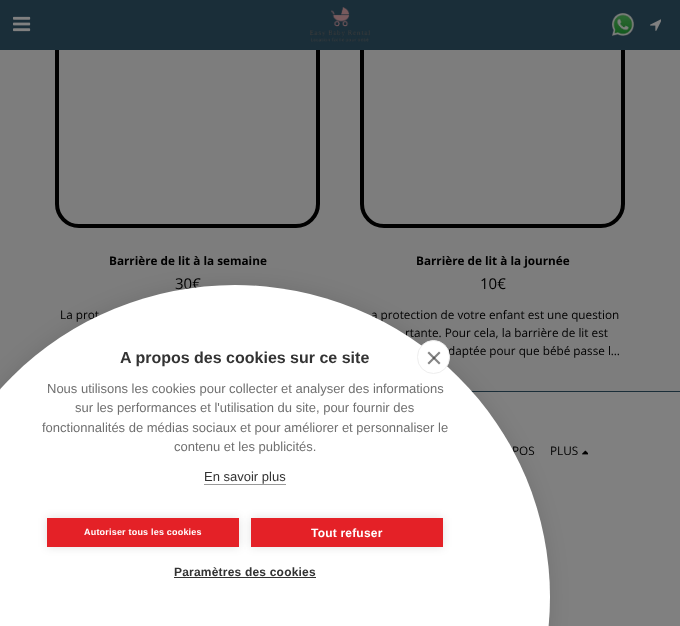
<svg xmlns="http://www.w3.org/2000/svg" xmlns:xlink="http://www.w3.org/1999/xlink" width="680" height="626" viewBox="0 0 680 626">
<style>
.cls-1{font:bold 11.75px Open Sans;fill:#000000}
.cls-2{font:15px Open Sans;fill:#000000}
.cls-3{font:11.75px Open Sans;fill:#000000}
.cls-4{font:bold 16px Liberation Sans;fill:#333333}
.cls-5{font:13px Liberation Sans;fill:#707070}
.cls-6{font:13px Liberation Sans;fill:#333333}
.cls-7{font:bold 9px Liberation Sans;letter-spacing:0.2px;fill:#ffffff}
.cls-8{font:bold 12px Liberation Sans;letter-spacing:0.2px;fill:#ffffff}
.cls-9{font:bold 12px Liberation Sans;letter-spacing:0.2px;fill:#333333}
</style>
<rect width="100%" height="100%" fill="#808080"/>
<rect fill="#7d7d7d" x="0" y="50" width="680" height="341"/>
<rect fill="none" stroke="#000000" stroke-width="4" x="57" y="23" width="261" height="203" rx="22"/>
<rect fill="none" stroke="#000000" stroke-width="4" x="362" y="23" width="261" height="203" rx="22"/>
<rect fill="#1a2e39" x="0" y="0" width="680" height="50"/>
<image xlink:href="image0.png" x="13" y="16" width="18" height="16"/>
<image xlink:href="image1.png" x="310" y="7" width="60" height="35"/>
<image xlink:href="image2.png" x="612" y="13" width="22" height="23"/>
<image xlink:href="image3.png" x="650" y="19" width="11" height="12"/>
<rect fill="#1a2e39" x="471" y="391" width="209" height="1"/>
<image xlink:href="image4.png" x="582" y="450" width="6" height="5"/>
<rect fill="#000000" fill-opacity="0.1" filter="blur(10px)" x="-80" y="285" width="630" height="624" rx="312"/>
<text class="cls-1" x="109" y="265">Barrière de lit à la semaine</text>
<text class="cls-2" x="175" y="289">30€</text>
<text class="cls-3" x="60" y="319">La prot</text>
<text class="cls-1" x="416" y="265">Barrière de lit à la journée</text>
<text class="cls-2" x="480" y="289">10€</text>
<text class="cls-3" x="371" y="319">a protection de votre enfant est une question</text>
<text class="cls-3" x="405" y="337">rtante. Pour cela, la barrière de lit est</text>
<text class="cls-3" x="448" y="355">daptée pour que bébé passe l…</text>
<text class="cls-3" x="512" y="455">POS</text>
<text class="cls-3" x="550" y="455">PLUS</text>
<ellipse fill="#ffffff" cx="235" cy="597" rx="315" ry="312"/>
<rect fill="#ffffff" stroke="#eeeeee" x="417.5" y="340.5" width="32" height="33" rx="16"/>
<path fill="#858585" d="M427.5 363L439 351.5L440.5 353L429 364.5Z"/>
<path fill="#333333" fill-opacity="0.6" d="M429 351.5L440.5 363L439 364.5L427.5 353Z"/>
<text class="cls-4" x="120" y="363">A propos des cookies sur ce site</text>
<text class="cls-5" x="47" y="393">Nous utilisons les cookies pour collecter et analyser des informations</text>
<text class="cls-5" x="75" y="412">sur les performances et l'utilisation du site, pour fournir des</text>
<text class="cls-5" x="42" y="432">fonctionnalités de médias sociaux et pour améliorer et personnaliser le</text>
<text class="cls-5" x="174" y="451">contenu et les publicités.</text>
<text class="cls-6" x="204" y="481">En savoir plus</text>
<rect fill="#999999" x="204" y="484" width="82" height="1"/>
<rect fill="#000000" fill-opacity="0.12" filter="blur(5px)" x="47" y="518" width="192" height="29"/>
<rect fill="#e42127" x="47" y="518" width="192" height="29"/>
<text class="cls-7" x="84" y="535">Autoriser tous les cookies</text>
<rect fill="#000000" fill-opacity="0.12" filter="blur(5px)" x="251" y="518" width="192" height="29"/>
<rect fill="#e42127" x="251" y="518" width="192" height="29"/>
<text class="cls-8" x="311" y="537">Tout refuser</text>
<text class="cls-9" x="174" y="576">Paramètres des cookies</text>
<rect fill="#333333" x="174" y="577" width="142" height="1"/>
</svg>
